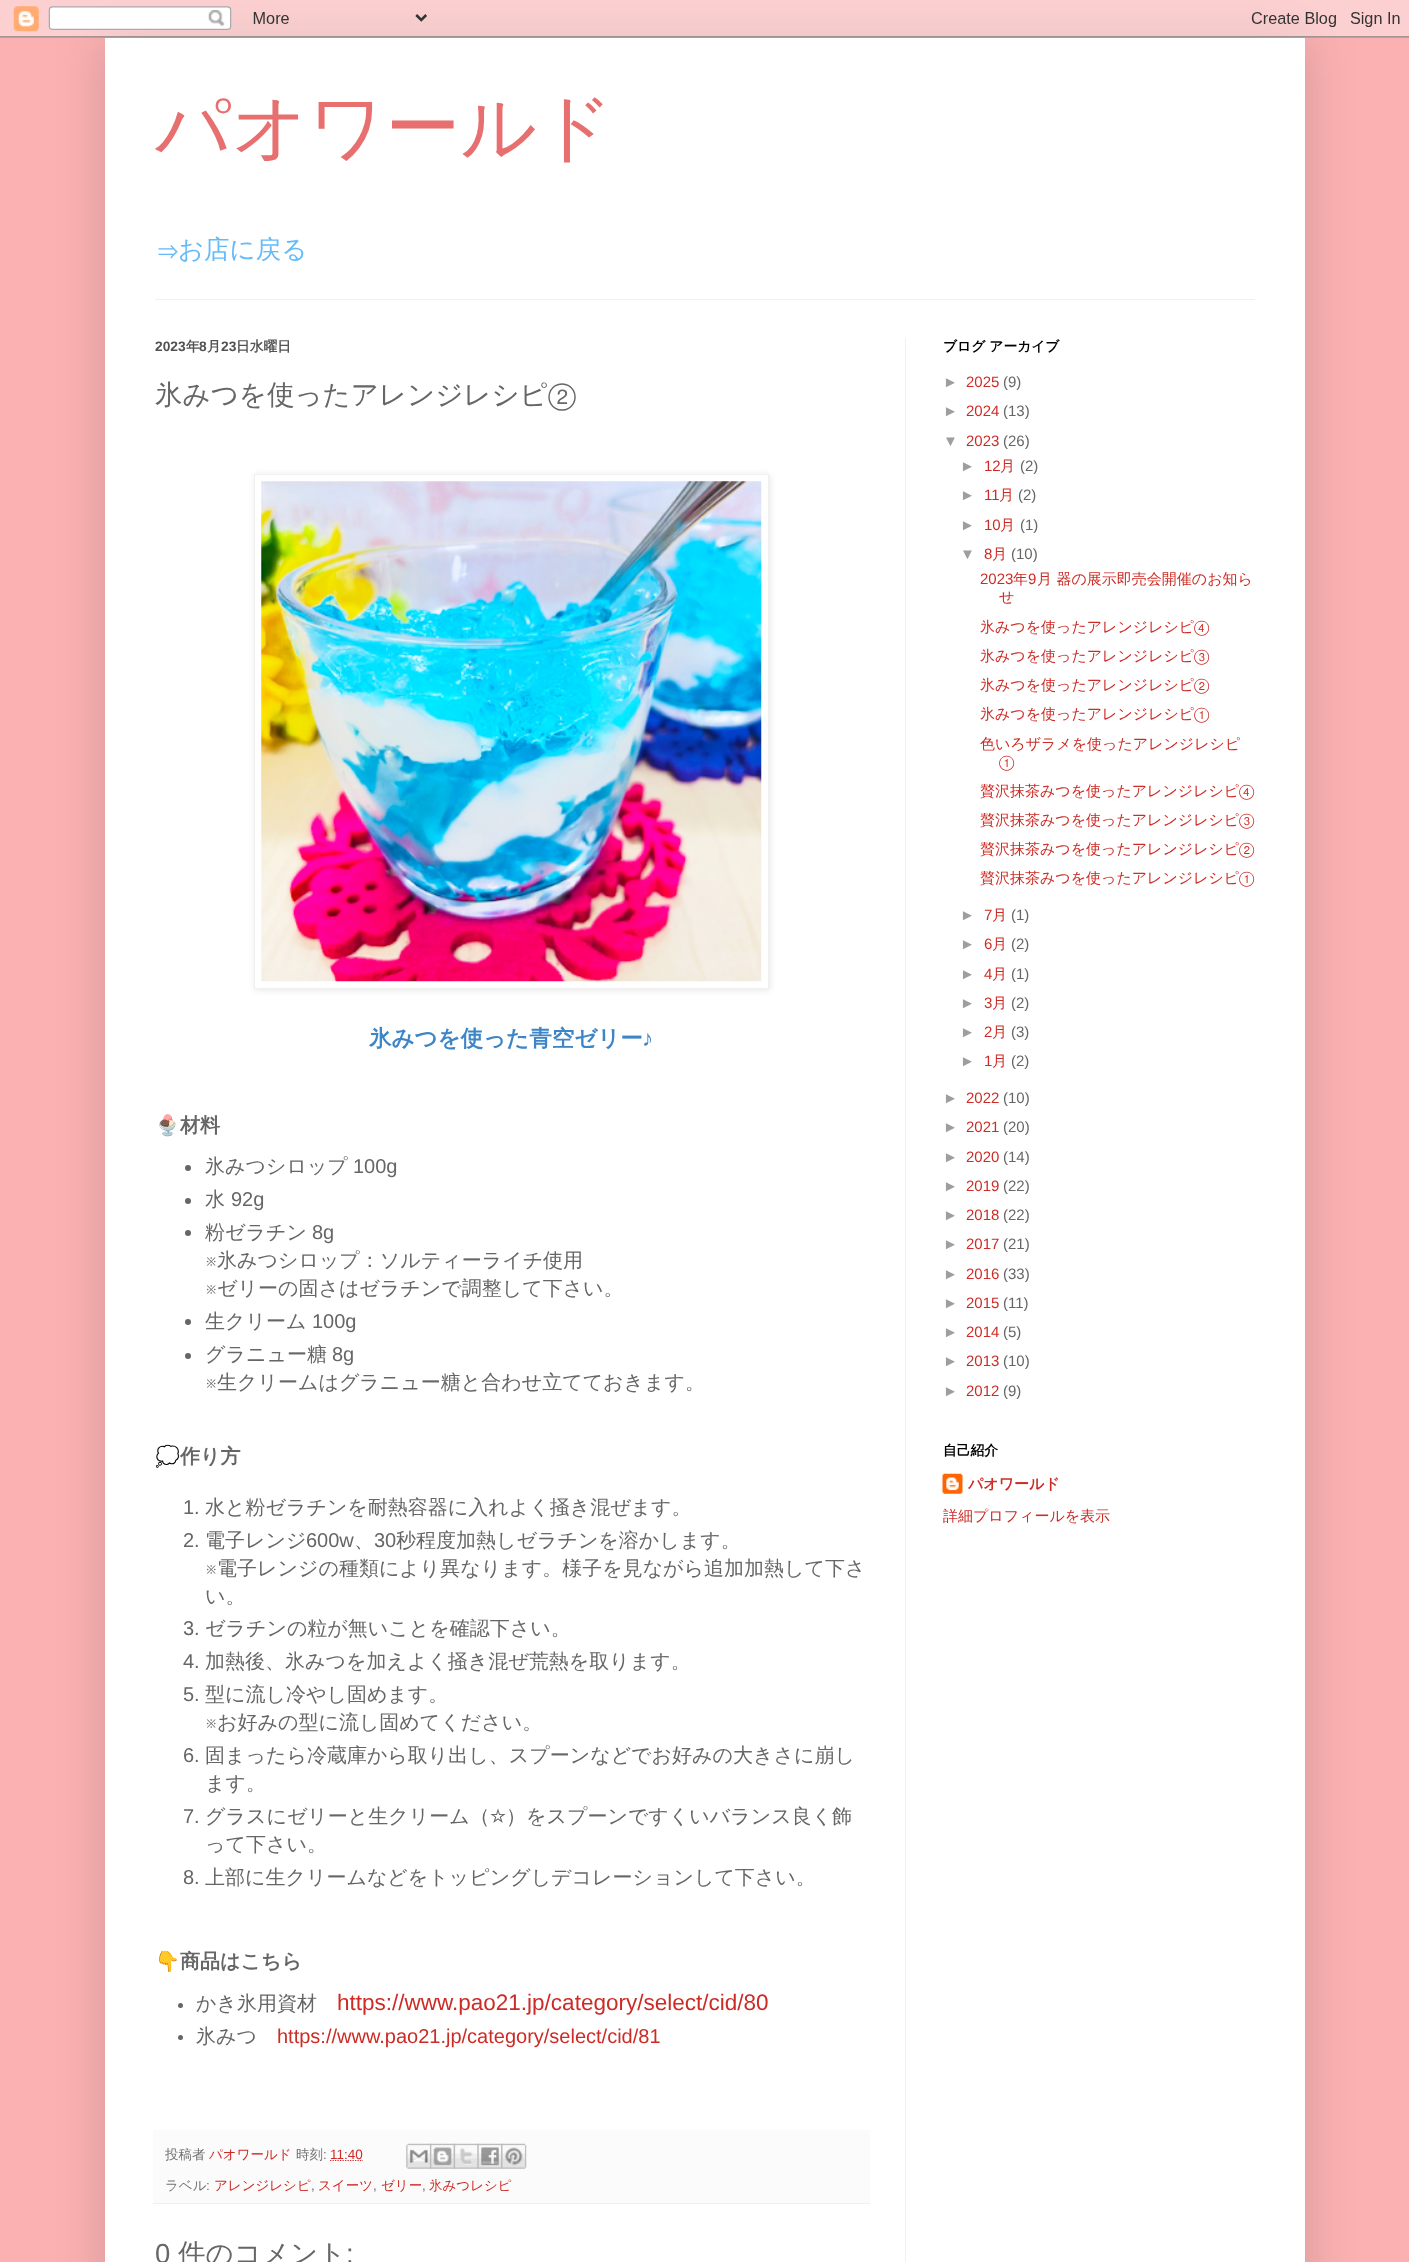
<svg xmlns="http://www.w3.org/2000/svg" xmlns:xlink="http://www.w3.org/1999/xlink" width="1409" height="2262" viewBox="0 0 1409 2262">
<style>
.cls-1{font:500 75px WenQuanYi Zen Hei;fill:#e76f6f}
.cls-2{font:25.5px FreeSans;fill:#63bbf8}
.cls-3{font:500 25.5px WenQuanYi Zen Hei;fill:#63bbf8}
.cls-4{font:bold 13.75px Liberation Sans;fill:#525252}
.cls-5{font:bold 13.75px WenQuanYi Zen Hei;fill:#525252}
.cls-6{font:500 27.5px WenQuanYi Zen Hei;fill:#666666}
.cls-7{font:27.5px FreeSans;fill:#666666}
.cls-8{font:bold 22.5px WenQuanYi Zen Hei;fill:#3d85c6}
.cls-9{font:bold 22.5px Liberation Sans;fill:#3d85c6}
.cls-10{font:bold 20px Noto Color Emoji;fill:#2b00fe}
.cls-11{font:bold 20px WenQuanYi Zen Hei;fill:#666666}
.cls-12{font:500 20px WenQuanYi Zen Hei;fill:#666666}
.cls-13{font:20px Liberation Sans;fill:#666666}
.cls-14{font:20px FreeSans;fill:#666666}
.cls-15{font:22.5px Liberation Sans;fill:#cd2b25}
.cls-16{font:20px Liberation Sans;fill:#cd2b25}
.cls-17{font:500 13.5px WenQuanYi Zen Hei;fill:#727272}
.cls-18{font:500 13.5px WenQuanYi Zen Hei;fill:#cd2b25}
.cls-19{font:13.5px Liberation Sans;fill:#727272}
.cls-20{font:13.5px Liberation Sans;fill:#cd2b25}
.cls-21{font:27.5px Liberation Sans;fill:#666666}
.cls-22{font:bold 13.75px WenQuanYi Zen Hei;fill:#000000}
.cls-23{font:15px Liberation Sans;fill:#9e9e9e}
.cls-24{font:15px Liberation Sans;fill:#cd2b25}
.cls-25{font:15px Liberation Sans;fill:#666666}
.cls-26{font:500 15px WenQuanYi Zen Hei;fill:#cd2b25}
.cls-27{font:15px FreeSans;fill:#cd2b25}
.cls-28{font:bold 15px WenQuanYi Zen Hei;fill:#cd2b25}
</style>
<rect width="100%" height="100%" fill="#fbb1b2"/>
<rect fill="#000000" fill-opacity="0.15" filter="blur(25px)" x="105" y="38" width="1200" height="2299"/>
<image xlink:href="image0.png" x="0" y="0" width="1409" height="38"/>
<rect fill="#ffffff" x="105" y="38" width="1200" height="2224"/>
<rect fill="#f0f0f0" x="155" y="299" width="1100" height="1"/>
<rect fill="#f0f0f0" x="905" y="338" width="1" height="1924"/>
<rect fill="#000000" fill-opacity="0.1" filter="blur(3px)" x="255" y="475" width="515" height="515"/>
<rect fill="#ffffff" stroke="#f0f0f0" x="254.5" y="474.5" width="514" height="514"/>
<image xlink:href="image1.png" x="261" y="481" width="501" height="501"/>
<circle fill="#666666" cx="188" cy="1168" r="3"/>
<circle fill="#666666" cx="188" cy="1201" r="3"/>
<circle fill="#666666" cx="188" cy="1233" r="3"/>
<circle fill="#666666" cx="188" cy="1322" r="3"/>
<circle fill="#666666" cx="188" cy="1356" r="3"/>
<circle fill="#666666" cx="180.5" cy="2005.5" r="2.5"/>
<circle fill="#666666" cx="180.5" cy="2037.5" r="2.5"/>
<rect fill="#fbfbfb" x="153" y="2130" width="717" height="73"/>
<rect fill="#f0f0f0" x="153" y="2203" width="717" height="1"/>
<path fill="none" stroke="#cd2b25" stroke-width="1.2" stroke-dasharray="1.25 1.25" d="M330 2160.5H363"/>
<image xlink:href="image2.png" x="406" y="2143" width="26" height="26"/>
<image xlink:href="image3.png" x="430" y="2143" width="25" height="26"/>
<image xlink:href="image4.png" x="453" y="2143" width="26" height="26"/>
<image xlink:href="image5.png" x="477" y="2143" width="26" height="26"/>
<image xlink:href="image6.png" x="501" y="2143" width="26" height="26"/>
<image xlink:href="image7.png" x="942" y="1473" width="21" height="21"/>
<text class="cls-1" x="155" y="153">パオワールド</text>
<text class="cls-2" x="158" y="258">⇒</text>
<text class="cls-3" x="178" y="258">お店に戻る</text>
<text class="cls-4" x="155" y="351">2023</text>
<text class="cls-5" x="186" y="351">年</text>
<text class="cls-4" x="199" y="351">8</text>
<text class="cls-5" x="207" y="351">月</text>
<text class="cls-4" x="221" y="351">23</text>
<text class="cls-5" x="236" y="351">日水曜日</text>
<text class="cls-6" x="155" y="404">氷みつを使ったアレンジレシピ</text>
<text class="cls-7" x="548" y="404">②</text>
<text class="cls-8" x="369" y="1046">氷みつを使った青空ゼリー</text>
<text class="cls-9" x="642" y="1046">♪</text>
<text class="cls-10" x="155" y="1132">🍨</text>
<text class="cls-11" x="180" y="1132">材料</text>
<text class="cls-12" x="205" y="1173">氷みつシロップ</text>
<text class="cls-13" x="353" y="1173">100g</text>
<text class="cls-12" x="205" y="1206">水</text>
<text class="cls-13" x="231" y="1206">92g</text>
<text class="cls-12" x="205" y="1239">粉ゼラチン</text>
<text class="cls-13" x="312" y="1239">8g</text>
<text class="cls-14" x="205" y="1267">※</text>
<text class="cls-12" x="217" y="1267">氷みつシロップ：ソルティーライチ使用</text>
<text class="cls-14" x="205" y="1295">※</text>
<text class="cls-12" x="217" y="1295">ゼリーの固さはゼラチンで調整して下さい。</text>
<text class="cls-12" x="205" y="1328">生クリーム</text>
<text class="cls-13" x="312" y="1328">100g</text>
<text class="cls-12" x="205" y="1361">グラニュー糖</text>
<text class="cls-13" x="332" y="1361">8g</text>
<text class="cls-14" x="205" y="1389">※</text>
<text class="cls-12" x="217" y="1389">生クリームはグラニュー糖と合わせ立てておきます。</text>
<text class="cls-10" x="155" y="1463">💭</text>
<text class="cls-11" x="180" y="1463">作り方</text>
<text class="cls-13" x="183" y="1514">1.</text>
<text class="cls-12" x="205" y="1514">水と粉ゼラチンを耐熱容器に入れよく掻き混ぜます。</text>
<text class="cls-13" x="183" y="1547">2.</text>
<text class="cls-12" x="205" y="1547">電子レンジ</text>
<text class="cls-13" x="306" y="1547">600w</text>
<text class="cls-12" x="354" y="1547">、</text>
<text class="cls-13" x="374" y="1547">30</text>
<text class="cls-12" x="396" y="1547">秒程度加熱しゼラチンを溶かします。</text>
<text class="cls-14" x="205" y="1575">※</text>
<text class="cls-12" x="217" y="1575">電子レンジの種類により異なります。様子を見ながら追加加熱して下さ</text>
<text class="cls-12" x="205" y="1603">い。</text>
<text class="cls-13" x="183" y="1635">3.</text>
<text class="cls-12" x="205" y="1635">ゼラチンの粒が無いことを確認下さい。</text>
<text class="cls-13" x="183" y="1668">4.</text>
<text class="cls-12" x="205" y="1668">加熱後、氷みつを加えよく掻き混ぜ荒熱を取ります。</text>
<text class="cls-13" x="183" y="1701">5.</text>
<text class="cls-12" x="205" y="1701">型に流し冷やし固めます。</text>
<text class="cls-14" x="205" y="1729">※</text>
<text class="cls-12" x="217" y="1729">お好みの型に流し固めてください。</text>
<text class="cls-13" x="183" y="1762">6.</text>
<text class="cls-12"><tspan x="205" y="1762">固まったら冷蔵庫から取り出し、スプーンなどでお好みの大きさに崩し</tspan><tspan x="205" y="1790">ます。</tspan></text>
<text class="cls-13" x="183" y="1823">7.</text>
<text class="cls-12" x="205" y="1823">グラスにゼリーと生クリーム（</text>
<text class="cls-14" x="490" y="1823">☆</text>
<text class="cls-12" x="506" y="1823">）をスプーンですくいバランス良く飾</text>
<text class="cls-12" x="205" y="1851">って下さい。</text>
<text class="cls-13" x="183" y="1884">8.</text>
<text class="cls-12" x="205" y="1884">上部に生クリームなどをトッピングしデコレーションして下さい。</text>
<text class="cls-10" x="155" y="1968">👇</text>
<text class="cls-11" x="180" y="1968">商品はこちら</text>
<text class="cls-12" x="196" y="2010">かき氷用資材</text>
<text class="cls-15" x="337" y="2010">https://www.pao21.jp/category/select/cid/80</text>
<text class="cls-12" x="196" y="2043">氷みつ</text>
<text class="cls-16" x="277" y="2043">https://www.pao21.jp/category/select/cid/81</text>
<text class="cls-17" x="165" y="2159">投稿者</text>
<text class="cls-18" x="209" y="2159">パオワールド</text>
<text class="cls-17" x="296" y="2159">時刻</text>
<text class="cls-19" x="323" y="2159">:</text>
<text class="cls-20" x="330" y="2159">11:40</text>
<text class="cls-17" x="165" y="2190">ラベル</text>
<text class="cls-19" x="206" y="2190">:</text>
<text class="cls-18" x="214" y="2190">アレンジレシピ</text>
<text class="cls-19" x="311" y="2190">,</text>
<text class="cls-18" x="318" y="2190">スイーツ</text>
<text class="cls-19" x="373" y="2190">,</text>
<text class="cls-18" x="381" y="2190">ゼリー</text>
<text class="cls-19" x="422" y="2190">,</text>
<text class="cls-18" x="429" y="2190">氷みつレシピ</text>
<text class="cls-21" x="155" y="2263">0</text>
<text class="cls-6" x="178" y="2263">件のコメント</text>
<text class="cls-21" x="346" y="2263">:</text>
<text class="cls-22" x="943" y="351">ブログ アーカイブ</text>
<text class="cls-23" x="943" y="387">►</text>
<text class="cls-24" x="966" y="387">2025</text>
<text class="cls-25" x="1003" y="387">(9)</text>
<text class="cls-23" x="943" y="416">►</text>
<text class="cls-24" x="966" y="416">2024</text>
<text class="cls-25" x="1003" y="416">(13)</text>
<text class="cls-23" x="943" y="446">▼</text>
<text class="cls-24" x="966" y="446">2023</text>
<text class="cls-25" x="1003" y="446">(26)</text>
<text class="cls-23" x="960" y="471">►</text>
<text class="cls-24" x="984" y="471">12</text>
<text class="cls-26" x="1000" y="471">月</text>
<text class="cls-25" x="1020" y="471">(2)</text>
<text class="cls-23" x="960" y="500">►</text>
<text class="cls-24" x="984" y="500">11</text>
<text class="cls-26" x="999" y="500">月</text>
<text class="cls-25" x="1018" y="500">(2)</text>
<text class="cls-23" x="960" y="530">►</text>
<text class="cls-24" x="984" y="530">10</text>
<text class="cls-26" x="1000" y="530">月</text>
<text class="cls-25" x="1020" y="530">(1)</text>
<text class="cls-23" x="960" y="559">▼</text>
<text class="cls-24" x="984" y="559">8</text>
<text class="cls-26" x="992" y="559">月</text>
<text class="cls-25" x="1011" y="559">(10)</text>
<text class="cls-24" x="980" y="584">2023</text>
<text class="cls-26" x="1013" y="584">年</text>
<text class="cls-24" x="1028" y="584">9</text>
<text class="cls-26" x="1037" y="584">月 器の展示即売会開催のお知ら</text>
<text class="cls-26" x="999" y="602">せ</text>
<text class="cls-26" x="980" y="632">氷みつを使ったアレンジレシピ</text>
<text class="cls-27" x="1194" y="632">④</text>
<text class="cls-26" x="980" y="661">氷みつを使ったアレンジレシピ</text>
<text class="cls-27" x="1194" y="661">③</text>
<text class="cls-26" x="980" y="690">氷みつを使ったアレンジレシピ</text>
<text class="cls-27" x="1194" y="690">②</text>
<text class="cls-26" x="980" y="719">氷みつを使ったアレンジレシピ</text>
<text class="cls-27" x="1194" y="719">①</text>
<text class="cls-26" x="980" y="749">色いろザラメを使ったアレンジレシピ</text>
<text class="cls-27" x="999" y="767">①</text>
<text class="cls-26" x="980" y="796">贅沢抹茶みつを使ったアレンジレシピ</text>
<text class="cls-27" x="1239" y="796">④</text>
<text class="cls-26" x="980" y="825">贅沢抹茶みつを使ったアレンジレシピ</text>
<text class="cls-27" x="1239" y="825">③</text>
<text class="cls-26" x="980" y="854">贅沢抹茶みつを使ったアレンジレシピ</text>
<text class="cls-27" x="1239" y="854">②</text>
<text class="cls-26" x="980" y="883">贅沢抹茶みつを使ったアレンジレシピ</text>
<text class="cls-27" x="1239" y="883">①</text>
<text class="cls-23" x="960" y="920">►</text>
<text class="cls-24" x="984" y="920">7</text>
<text class="cls-26" x="992" y="920">月</text>
<text class="cls-25" x="1011" y="920">(1)</text>
<text class="cls-23" x="960" y="949">►</text>
<text class="cls-24" x="984" y="949">6</text>
<text class="cls-26" x="992" y="949">月</text>
<text class="cls-25" x="1011" y="949">(2)</text>
<text class="cls-23" x="960" y="979">►</text>
<text class="cls-24" x="984" y="979">4</text>
<text class="cls-26" x="992" y="979">月</text>
<text class="cls-25" x="1011" y="979">(1)</text>
<text class="cls-23" x="960" y="1008">►</text>
<text class="cls-24" x="984" y="1008">3</text>
<text class="cls-26" x="992" y="1008">月</text>
<text class="cls-25" x="1011" y="1008">(2)</text>
<text class="cls-23" x="960" y="1037">►</text>
<text class="cls-24" x="984" y="1037">2</text>
<text class="cls-26" x="992" y="1037">月</text>
<text class="cls-25" x="1011" y="1037">(3)</text>
<text class="cls-23" x="960" y="1066">►</text>
<text class="cls-24" x="984" y="1066">1</text>
<text class="cls-26" x="992" y="1066">月</text>
<text class="cls-25" x="1011" y="1066">(2)</text>
<text class="cls-23" x="943" y="1103">►</text>
<text class="cls-24" x="966" y="1103">2022</text>
<text class="cls-25" x="1003" y="1103">(10)</text>
<text class="cls-23" x="943" y="1132">►</text>
<text class="cls-24" x="966" y="1132">2021</text>
<text class="cls-25" x="1003" y="1132">(20)</text>
<text class="cls-23" x="943" y="1162">►</text>
<text class="cls-24" x="966" y="1162">2020</text>
<text class="cls-25" x="1003" y="1162">(14)</text>
<text class="cls-23" x="943" y="1191">►</text>
<text class="cls-24" x="966" y="1191">2019</text>
<text class="cls-25" x="1003" y="1191">(22)</text>
<text class="cls-23" x="943" y="1220">►</text>
<text class="cls-24" x="966" y="1220">2018</text>
<text class="cls-25" x="1003" y="1220">(22)</text>
<text class="cls-23" x="943" y="1249">►</text>
<text class="cls-24" x="966" y="1249">2017</text>
<text class="cls-25" x="1003" y="1249">(21)</text>
<text class="cls-23" x="943" y="1279">►</text>
<text class="cls-24" x="966" y="1279">2016</text>
<text class="cls-25" x="1003" y="1279">(33)</text>
<text class="cls-23" x="943" y="1308">►</text>
<text class="cls-24" x="966" y="1308">2015</text>
<text class="cls-25" x="1003" y="1308">(11)</text>
<text class="cls-23" x="943" y="1337">►</text>
<text class="cls-24" x="966" y="1337">2014</text>
<text class="cls-25" x="1003" y="1337">(5)</text>
<text class="cls-23" x="943" y="1366">►</text>
<text class="cls-24" x="966" y="1366">2013</text>
<text class="cls-25" x="1003" y="1366">(10)</text>
<text class="cls-23" x="943" y="1396">►</text>
<text class="cls-24" x="966" y="1396">2012</text>
<text class="cls-25" x="1003" y="1396">(9)</text>
<text class="cls-22" x="943" y="1455">自己紹介</text>
<text class="cls-28" x="968" y="1489">パオワールド</text>
<text class="cls-26" x="943" y="1521">詳細プロフィールを表示</text>
</svg>
